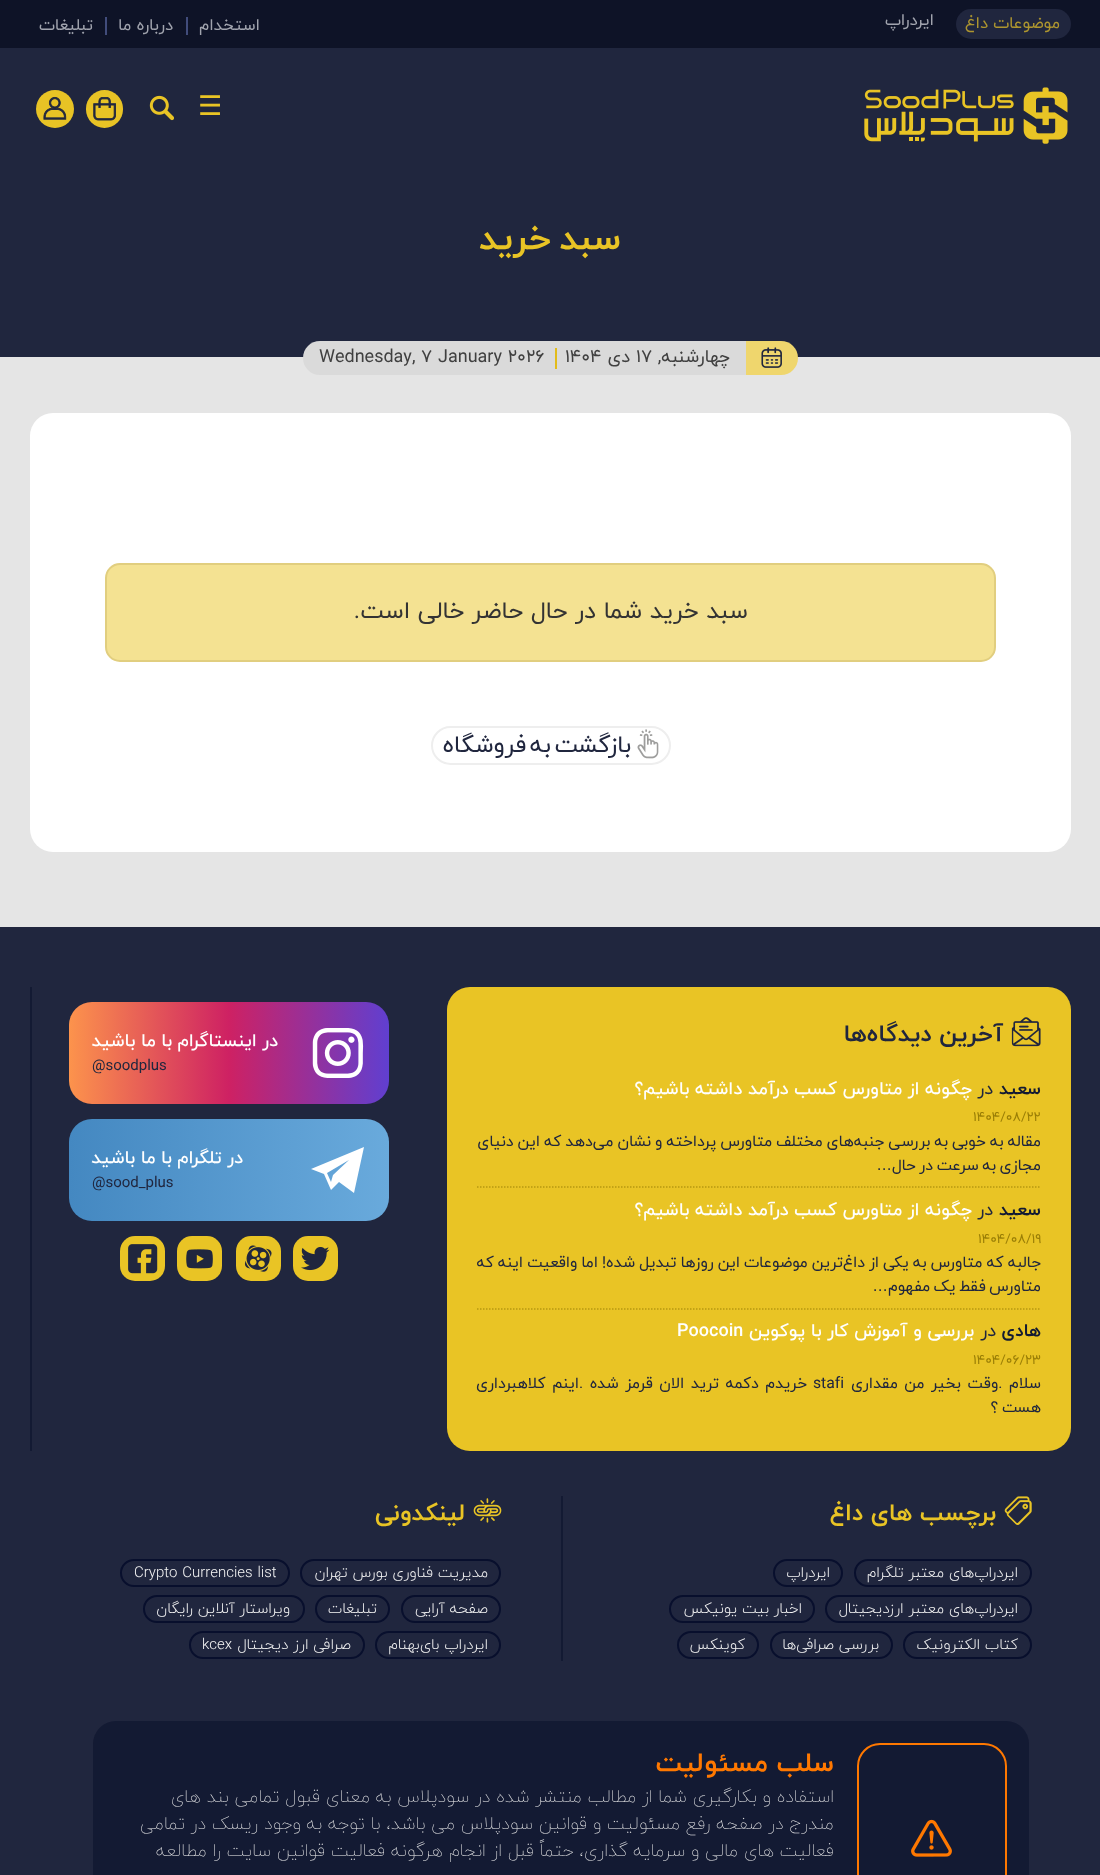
<svg xmlns="http://www.w3.org/2000/svg" xmlns:xlink="http://www.w3.org/1999/xlink" width="1100" height="1875" viewBox="0 0 1100 1875">
<style>
.cls-1{font:16.5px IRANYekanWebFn;direction:rtl;fill:#ad952f}
.cls-2{font:16.5px IRANYekanWebFn;direction:rtl;fill:#a1a4ae}
.cls-3{font:27px DejaVu Sans;fill:#e9c425}
.cls-4{font:bold 36px IRANYekanWebFn;direction:rtl;fill:#e9c425}
.cls-5{font:18px IRANYekanWebFn;direction:rtl;fill:#404040}
.cls-6{font:18px IRANYekanWebFn;fill:#404040}
.cls-7{font:24px IRANYekanWebFn;direction:rtl;fill:#333333}
.cls-8{font:24px IRANYekanWebFn;direction:rtl;fill:#20263e}
.cls-9{font:bold 24px IRANYekanWebFn;direction:rtl;fill:#20263e}
.cls-10{font:bold 18px IRANYekanWebFn;direction:rtl;fill:#131a33}
.cls-11{font:18px IRANYekanWebFn;direction:rtl;fill:#20263e}
.cls-12{font:500 18px IRANYekanWebFn;direction:rtl;fill:#ffffff}
.cls-13{font:13.5px IRANYekanWebFn;fill:#9a7e06}
.cls-14{font:15.75px IRANYekanWebFn;direction:rtl;fill:#20263e}
.cls-15{font:15.75px Liberation Sans;direction:rtl;fill:#20263e}
.cls-16{font:500 18px IRANYekanWebFn;fill:#ffffff}
.cls-17{font:15.75px IRANYekanWebFn;fill:#20263e}
.cls-18{font:15px IRANYekanWebFn;fill:#20263e}
.cls-19{font:bold 24px IRANYekanWebFn;direction:rtl;fill:#e9c425}
.cls-20{font:300 15px IRANYekanWebFn;direction:rtl;fill:#f5f5f5}
.cls-21{font:300 15px IRANYekanWebFn;fill:#f5f5f5}
.cls-22{font:bold 27px IRANYekanWebFn;direction:rtl;fill:#ff7800}
.cls-23{font:100 18px IRANYekanWebFn;direction:rtl;fill:#eeeeee}
</style>
<defs>
<linearGradient id="g1" gradientUnits="userSpaceOnUse" x1="69" y1="1053" x2="389" y2="1053"><stop offset="0" stop-color="#fc934c"/><stop offset="0.5" stop-color="#ce2163"/><stop offset="1" stop-color="#603fd0"/></linearGradient>
<linearGradient id="g2" gradientUnits="userSpaceOnUse" x1="69" y1="1170" x2="389" y2="1170"><stop offset="0" stop-color="#4488c1"/><stop offset="1" stop-color="#69aadc"/></linearGradient>
</defs>
<rect width="100%" height="100%" fill="#e5e5e5"/>
<rect fill="#0e1327" x="0" y="0" width="1100" height="48"/>
<rect fill="#20263e" x="956" y="9" width="115" height="30" rx="15"/>
<rect fill="#414c7b" x="186" y="17" width="2" height="18"/>
<rect fill="#414c7b" x="105" y="17" width="2" height="18"/>
<rect fill="#20263e" x="0" y="48" width="1100" height="309"/>
<image xlink:href="image0.png" x="864" y="87" width="204" height="57"/>
<image xlink:href="image1.png" x="149" y="95" width="25" height="26"/>
<rect fill="#e8c325" x="86" y="90" width="37" height="38" rx="18.5"/>
<image xlink:href="image2.png" x="93" y="97" width="23" height="24"/>
<circle fill="#e8c325" cx="55" cy="109" r="19"/>
<image xlink:href="image3.png" x="43" y="96" width="24" height="24"/>
<path fill="#efd66d" d="M746 341H781C790.5 341 798 348.5 798 358C798 367.5 790.5 375 781 375H746Z"/>
<image xlink:href="image4.png" x="761" y="347" width="21" height="21"/>
<path fill="#dadada" d="M320 341H746V375H320C310.5 375 303 367.5 303 358C303 348.5 310.5 341 320 341Z"/>
<rect fill="#e2bc1a" x="555" y="348" width="2" height="21"/>
<rect fill="#ffffff" x="30" y="413" width="1041" height="439" rx="23"/>
<rect fill="#f4e292" stroke="#e1ce7f" stroke-width="2" x="106" y="564" width="889" height="97" rx="14"/>
<rect fill="none" stroke="#eeeeee" stroke-width="2" x="432" y="727" width="238" height="37" rx="18.5"/>
<rect fill="#20263e" x="0" y="927" width="1100" height="948"/>
<rect fill="#e9c425" x="447" y="987" width="624" height="464" rx="23"/>
<image xlink:href="image6.png" x="1011" y="1017" width="30" height="30"/>
<path fill="none" stroke="#b79811" stroke-width="1.5" stroke-dasharray="1.5 1.5" d="M477 1187H1041"/>
<path fill="none" stroke="#b79811" stroke-width="1.5" stroke-dasharray="1.5 1.5" d="M477 1309H1041"/>
<rect fill="#131a33" x="30" y="987" width="2" height="464"/>
<rect fill="url(#g1)" x="69" y="1002" width="320" height="102" rx="23"/>
<image xlink:href="image7.png" x="312" y="1028" width="52" height="50"/>
<rect fill="url(#g2)" x="69" y="1119" width="320" height="102" rx="23"/>
<path fill="#ffffff" d="M324 1174L331 1190L339 1182L354 1193L364 1147L311 1169ZM349 1160L333 1175L331 1182L327 1173Z"/>
<rect fill="#e9c425" x="293" y="1236" width="45" height="45" rx="15"/>
<image xlink:href="image8.png" x="301" y="1246" width="29" height="25"/>
<rect fill="#e9c425" x="236" y="1236" width="45" height="45" rx="15"/>
<image xlink:href="image9.png" x="244" y="1245" width="28" height="27"/>
<rect fill="#e9c425" x="177" y="1236" width="45" height="45" rx="15"/>
<image xlink:href="image10.png" x="186" y="1249" width="27" height="20"/>
<rect fill="#e9c425" x="120" y="1236" width="45" height="45" rx="15"/>
<image xlink:href="image11.png" x="128" y="1244" width="30" height="30"/>
<rect fill="#131a33" x="561" y="1496" width="2" height="165"/>
<image xlink:href="image12.png" x="1004" y="1496" width="28" height="29"/>
<rect fill="none" stroke="#080f2d" stroke-width="2" x="855" y="1560" width="176" height="26" rx="13"/>
<rect fill="none" stroke="#080f2d" stroke-width="2" x="774" y="1560" width="68" height="26" rx="13"/>
<rect fill="none" stroke="#080f2d" stroke-width="2" x="826" y="1596" width="205" height="26" rx="13"/>
<rect fill="none" stroke="#080f2d" stroke-width="2" x="670" y="1596" width="144" height="26" rx="13"/>
<rect fill="none" stroke="#080f2d" stroke-width="2" x="904" y="1632" width="127" height="26" rx="13"/>
<rect fill="none" stroke="#080f2d" stroke-width="2" x="771" y="1632" width="121" height="26" rx="13"/>
<rect fill="none" stroke="#080f2d" stroke-width="2" x="678" y="1632" width="80" height="26" rx="13"/>
<image xlink:href="image13.png" x="473" y="1498" width="29" height="25"/>
<rect fill="none" stroke="#080f2d" stroke-width="2" x="301" y="1560" width="199" height="26" rx="13"/>
<rect fill="none" stroke="#080f2d" stroke-width="2" x="121" y="1560" width="168" height="26" rx="13"/>
<rect fill="none" stroke="#080f2d" stroke-width="2" x="402" y="1596" width="98" height="26" rx="13"/>
<rect fill="none" stroke="#080f2d" stroke-width="2" x="316" y="1596" width="73" height="26" rx="13"/>
<rect fill="none" stroke="#080f2d" stroke-width="2" x="144" y="1596" width="160" height="26" rx="13"/>
<rect fill="none" stroke="#080f2d" stroke-width="2" x="376" y="1632" width="124" height="26" rx="13"/>
<rect fill="none" stroke="#080f2d" stroke-width="2" x="190" y="1632" width="174" height="26" rx="13"/>
<rect fill="#131a33" x="93" y="1721" width="936" height="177" rx="23"/>
<rect fill="none" stroke="#ff7800" stroke-width="2" x="858" y="1744" width="148" height="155" rx="22"/>
<image xlink:href="image14.png" x="911" y="1819" width="41" height="38"/>
<text class="cls-1" x="1060" y="28">موضوعات داغ</text>
<text class="cls-2" x="934" y="25">ایردراپ</text>
<text class="cls-2" x="260" y="30">استخدام</text>
<text class="cls-2" x="173" y="30">درباره ما</text>
<text class="cls-2" x="93" y="30">تبلیغات</text>
<text class="cls-3" x="198" y="115">☰</text>
<text class="cls-4" x="621" y="249" word-spacing="-3">سبد خرید</text>
<text class="cls-5" x="730" y="362">چهارشنبه,</text>
<text class="cls-6" x="636" y="362">۱۷</text>
<text class="cls-5" x="630" y="362">دی</text>
<text class="cls-6" x="565" y="362">۱۴۰۴</text>
<text class="cls-6" x="319" y="362">Wednesday, 7 January 2026</text>
<text class="cls-7" x="748" y="618">سبد خرید شما در حال حاضر خالی است.</text>
<text class="cls-8" x="631" y="752" word-spacing="-4">بازگشت به فروشگاه</text>
<image xlink:href="image5.png" x="637" y="729" width="22" height="30"/>
<text class="cls-9" x="1003" y="1041">آخرین دیدگاه‌ها</text>
<text class="cls-10" x="1041" y="1094">سعید</text>
<text class="cls-11" x="993" y="1094">در</text>
<text class="cls-12" x="972" y="1094">چگونه از متاورس کسب درآمد داشته باشیم؟</text>
<text class="cls-13" x="973" y="1121">1404/08/22</text>
<text class="cls-14"><tspan x="1041" y="1146" word-spacing="-1">مقاله به خوبی به بررسی جنبه‌های مختلف متاورس پرداخته و نشان می‌دهد که این دنیای</tspan><tspan x="1041" y="1170" word-spacing="-1.5">مجازی به سرعت در حال</tspan></text>
<text class="cls-15" x="892" y="1170">…</text>
<text class="cls-10" x="1041" y="1215">سعید</text>
<text class="cls-11" x="993" y="1215">در</text>
<text class="cls-12" x="972" y="1215">چگونه از متاورس کسب درآمد داشته باشیم؟</text>
<text class="cls-13" x="978" y="1243">1404/08/19</text>
<text class="cls-14"><tspan x="1041" y="1267" word-spacing="-1">جالبه که متاورس به یکی از داغ‌ترین موضوعات این روزها تبدیل شده! اما واقعیت اینه که</tspan><tspan x="1041" y="1291" word-spacing="-1.5">متاورس فقط یک مفهوم</tspan></text>
<text class="cls-15" x="888" y="1291">…</text>
<text class="cls-10" x="1041" y="1336">هادی</text>
<text class="cls-11" x="996" y="1336">در</text>
<text class="cls-12" x="974" y="1336">بررسی و آموزش کار با پوکوین</text>
<text class="cls-16" x="677" y="1336">Poocoin</text>
<text class="cls-13" x="973" y="1364">1404/06/23</text>
<text class="cls-14" x="1041" y="1388" word-spacing="1.5">سلام .وقت بخیر من مقداری</text>
<text class="cls-17" x="813" y="1388">stafi</text>
<text class="cls-14" x="807" y="1388" word-spacing="1.5">خریدم دکمه ترید الان قرمز شده .اینم کلاهبرداری</text>
<text class="cls-14" x="1041" y="1412" word-spacing="-1.5">هست ؟</text>
<text class="cls-12" x="278" y="1046">در اینستاگرام با ما باشید</text>
<text class="cls-18" x="92" y="1070">@soodplus</text>
<text class="cls-12" x="243" y="1163">در تلگرام با ما باشید</text>
<text class="cls-18" x="92" y="1187">@sood_plus</text>
<text class="cls-19" x="996" y="1520">برچسب های داغ</text>
<text class="cls-20" x="1018" y="1577">ایردراپ‌های معتبر تلگرام</text>
<text class="cls-20" x="830" y="1577">ایردراپ</text>
<text class="cls-20" x="1018" y="1613">ایردراپ‌های معتبر ارزدیجیتال</text>
<text class="cls-20" x="802" y="1613">اخبار بیت یونیکس</text>
<text class="cls-20" x="1018" y="1649">کتاب الکترونیک</text>
<text class="cls-20" x="879" y="1649">بررسی صرافی‌ها</text>
<text class="cls-20" x="745" y="1649">کوینکس</text>
<text class="cls-19" x="465" y="1520">لینکدونی</text>
<text class="cls-20" x="488" y="1577">مدیریت فناوری بورس تهران</text>
<text class="cls-21" x="134" y="1577">Crypto Currencies list</text>
<text class="cls-20" x="488" y="1613">صفحه آرایی</text>
<text class="cls-20" x="377" y="1613">تبلیغات</text>
<text class="cls-20" x="290" y="1613">ویراستار آنلاین رایگان</text>
<text class="cls-20" x="488" y="1649">ایردراپ بای‌بهنام</text>
<text class="cls-20" x="351" y="1649">صرافی ارز دیجیتال</text>
<text class="cls-21" x="202" y="1649">kcex</text>
<text class="cls-22" x="834" y="1771">سلب مسئولیت</text>
<text class="cls-23"><tspan x="834" y="1802">استفاده و بکارگیری شما از مطالب منتشر شده در سودپلاس به معنای قبول تمامی بند های</tspan><tspan x="834" y="1829">مندرج در صفحه رفع مسئولیت و قوانین سودپلاس می باشد، با توجه به وجود ریسک در تمامی</tspan><tspan x="834" y="1856">فعالیت های مالی و سرمایه گذاری، حتماً قبل از انجام هرگونه فعالیت قوانین سایت را مطالعه</tspan></text>
</svg>
